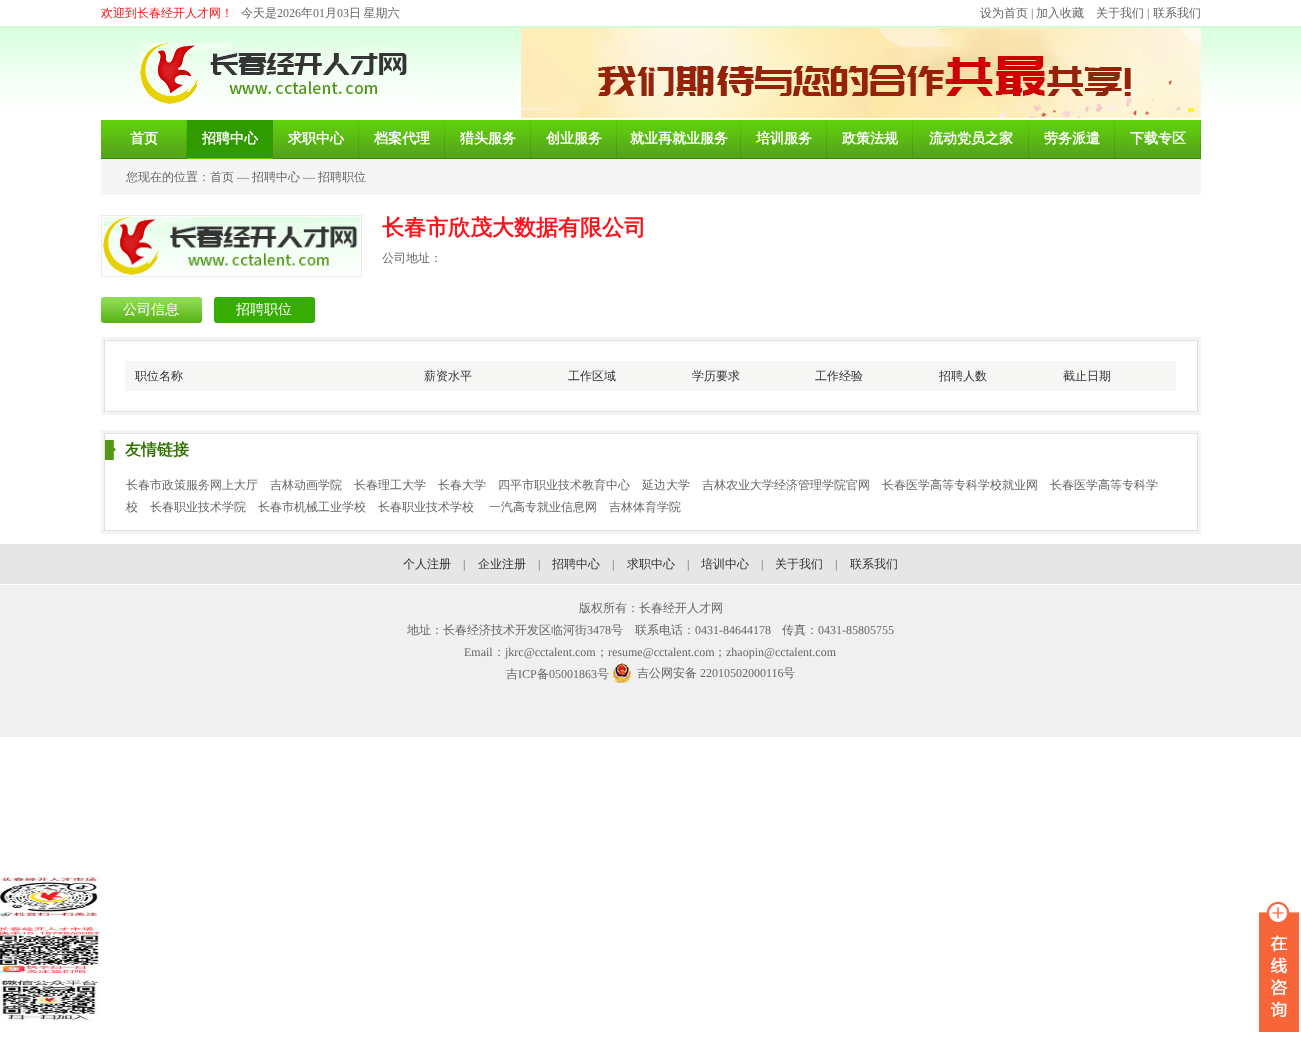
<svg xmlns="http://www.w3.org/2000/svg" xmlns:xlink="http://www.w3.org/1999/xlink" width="1301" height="1042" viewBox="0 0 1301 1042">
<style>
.cls-1{font:500 12px WenQuanYi Zen Hei;fill:#fd131a}
.cls-2{font:500 12px WenQuanYi Zen Hei;fill:#666666}
.cls-3{font:12px Liberation Serif;fill:#666666}
.cls-4{font:bold 14px WenQuanYi Zen Hei;fill:#ffffff}
.cls-5{font:bold 22px WenQuanYi Zen Hei;fill:#fd131a}
.cls-6{font:500 14px WenQuanYi Zen Hei;fill:#ffffff}
.cls-7{font:500 12px WenQuanYi Zen Hei;fill:#333333}
.cls-8{font:bold 16px WenQuanYi Zen Hei;fill:#317200}
</style>
<defs>
<clipPath id="clip1"><rect x="126" y="474" width="1050" height="56"/></clipPath>
</defs>
<rect width="100%" height="100%" fill="#ffffff"/>
<image xlink:href="image0.png" x="0" y="26" width="1301" height="80"/>
<image xlink:href="image1.png" x="140" y="43" width="270" height="61"/>
<image xlink:href="image2.png" x="521" y="28" width="680" height="90"/>
<rect fill="#fff320" x="1188" y="108" width="6" height="4"/>
<image xlink:href="image3.png" x="101" y="120" width="1099" height="38"/>
<image xlink:href="image4.png" x="186" y="120" width="1" height="38"/>
<rect fill="#2e9103" x="101" y="158" width="86" height="1"/>
<rect fill="#2f9b00" x="187" y="120" width="86" height="38"/>
<rect fill="#5acf02" x="187" y="158" width="86" height="1"/>
<image xlink:href="image4.png" x="358" y="120" width="1" height="38"/>
<rect fill="#2e9103" x="273" y="158" width="928" height="1"/>
<image xlink:href="image4.png" x="444" y="120" width="1" height="38"/>
<image xlink:href="image4.png" x="530" y="120" width="1" height="38"/>
<image xlink:href="image4.png" x="616" y="120" width="1" height="38"/>
<image xlink:href="image4.png" x="740" y="120" width="1" height="38"/>
<image xlink:href="image4.png" x="826" y="120" width="1" height="38"/>
<image xlink:href="image4.png" x="912" y="120" width="1" height="38"/>
<image xlink:href="image4.png" x="1028" y="120" width="1" height="38"/>
<image xlink:href="image4.png" x="1114" y="120" width="1" height="38"/>
<image xlink:href="image4.png" x="1200" y="120" width="1" height="38"/>
<rect fill="#f5f5f5" x="101" y="159" width="1100" height="36"/>
<rect fill="none" stroke="#ebebeb" x="101.5" y="215.5" width="260" height="61"/>
<image xlink:href="image5.png" x="103" y="217" width="257" height="58"/>
<image xlink:href="image6.png" x="101" y="297" width="101" height="26"/>
<rect fill="#37ac03" x="214" y="297" width="101" height="26" rx="3"/>
<rect fill="#f4f4f4" x="101" y="337" width="1100" height="78"/>
<rect fill="#ffffff" stroke="#e0e0e0" x="104.5" y="340.5" width="1093" height="71"/>
<rect fill="#f6f6f5" x="125" y="361" width="1051" height="30"/>
<rect fill="#f4f4f4" x="101" y="430" width="1100" height="104"/>
<rect fill="#ffffff" stroke="#e0e0e0" x="104.5" y="433.5" width="1093" height="97"/>
<image xlink:href="image7.png" x="105" y="440" width="11" height="20"/>
<rect fill="#e6e6e6" x="0" y="544" width="1301" height="40"/>
<rect fill="#f0f0f0" x="0" y="585" width="1301" height="152"/>
<image xlink:href="image8.png" x="613" y="663" width="18" height="20"/>
<image xlink:href="image9.png" x="0" y="877" width="101" height="144"/>
<image xlink:href="image10.png" x="1259" y="901" width="40" height="131"/>
<text class="cls-1" x="101" y="17">欢迎到长春经开人才网！</text>
<text class="cls-2" x="241" y="17">今天是</text>
<text class="cls-3" x="277" y="17">2026</text>
<text class="cls-2" x="301" y="17">年</text>
<text class="cls-3" x="313" y="17">01</text>
<text class="cls-2" x="325" y="17">月</text>
<text class="cls-3" x="337" y="17">03</text>
<text class="cls-2" x="349" y="17" word-spacing="-1">日 星期六</text>
<text class="cls-2" x="980" y="17">设为首页</text>
<text class="cls-3" x="1031" y="17">|</text>
<text class="cls-2" x="1036" y="17">加入收藏</text>
<text class="cls-2" x="1096" y="17">关于我们</text>
<text class="cls-3" x="1147" y="17">|</text>
<text class="cls-2" x="1153" y="17">联系我们</text>
<text class="cls-4" x="130" y="143">首页</text>
<text class="cls-4" x="202" y="143">招聘中心</text>
<text class="cls-4" x="288" y="143">求职中心</text>
<text class="cls-4" x="374" y="143">档案代理</text>
<text class="cls-4" x="460" y="143">猎头服务</text>
<text class="cls-4" x="546" y="143">创业服务</text>
<text class="cls-4" x="630" y="143">就业再就业服务</text>
<text class="cls-4" x="756" y="143">培训服务</text>
<text class="cls-4" x="842" y="143">政策法规</text>
<text class="cls-4" x="929" y="143">流动党员之家</text>
<text class="cls-4" x="1044" y="143">劳务派遣</text>
<text class="cls-4" x="1130" y="143">下载专区</text>
<text class="cls-2" x="126" y="181">您现在的位置：首页</text>
<text class="cls-3" x="237" y="181">—</text>
<text class="cls-2" x="252" y="181">招聘中心</text>
<text class="cls-3" x="303" y="181">—</text>
<text class="cls-2" x="318" y="181">招聘职位</text>
<text class="cls-5" x="382" y="235">长春市欣茂大数据有限公司</text>
<text class="cls-2" x="382" y="262">公司地址：</text>
<text class="cls-6" x="123" y="314">公司信息</text>
<text class="cls-6" x="236" y="314">招聘职位</text>
<text class="cls-7" x="135" y="380">职位名称</text>
<text class="cls-7" x="424" y="380">薪资水平</text>
<text class="cls-7" x="568" y="380">工作区域</text>
<text class="cls-7" x="692" y="380">学历要求</text>
<text class="cls-7" x="815" y="380">工作经验</text>
<text class="cls-7" x="939" y="380">招聘人数</text>
<text class="cls-7" x="1063" y="380">截止日期</text>
<text class="cls-8" x="125" y="455">友情链接</text>
<text class="cls-2" x="126" y="489">长春市政策服务网上大厅</text>
<text class="cls-2" x="270" y="489">吉林动画学院</text>
<text class="cls-2" x="354" y="489">长春理工大学</text>
<text class="cls-2" x="438" y="489">长春大学</text>
<text class="cls-2" x="498" y="489">四平市职业技术教育中心</text>
<text class="cls-2" x="642" y="489">延边大学</text>
<text class="cls-2" x="702" y="489">吉林农业大学经济管理学院官网</text>
<text class="cls-2" x="882" y="489">长春医学高等专科学校就业网</text>
<text class="cls-2" x="1050" y="489">长春医学高等专科学</text>
<g clip-path="url(#clip1)">
<text class="cls-2" x="126" y="511">校</text>
</g>
<text class="cls-2" x="150" y="511">长春职业技术学院</text>
<text class="cls-2" x="258" y="511">长春市机械工业学校</text>
<text class="cls-2" x="378" y="511">长春职业技术学校</text>
<text class="cls-2" x="489" y="511">一汽高专就业信息网</text>
<text class="cls-2" x="609" y="511">吉林体育学院</text>
<text class="cls-7" x="403" y="568">个人注册</text>
<text class="cls-3" x="463" y="568">|</text>
<text class="cls-7" x="478" y="568">企业注册</text>
<text class="cls-3" x="538" y="568">|</text>
<text class="cls-7" x="552" y="568">招聘中心</text>
<text class="cls-3" x="612" y="568">|</text>
<text class="cls-7" x="627" y="568">求职中心</text>
<text class="cls-3" x="687" y="568">|</text>
<text class="cls-7" x="701" y="568">培训中心</text>
<text class="cls-3" x="761" y="568">|</text>
<text class="cls-7" x="775" y="568">关于我们</text>
<text class="cls-3" x="835" y="568">|</text>
<text class="cls-7" x="850" y="568">联系我们</text>
<text class="cls-2" x="579" y="612">版权所有：长春经开人才网</text>
<text class="cls-2" x="407" y="634">地址：长春经济技术开发区临河街</text>
<text class="cls-3" x="587" y="634">3478</text>
<text class="cls-2" x="611" y="634">号</text>
<text class="cls-2" x="635" y="634">联系电话：</text>
<text class="cls-3" x="695" y="634">0431-84644178</text>
<text class="cls-2" x="782" y="634">传真：</text>
<text class="cls-3" x="818" y="634">0431-85805755</text>
<text class="cls-3" x="464" y="656">Email</text>
<text class="cls-2" x="493" y="656">：</text>
<text class="cls-3" x="505" y="656">jkrc@cctalent.com</text>
<text class="cls-2" x="596" y="656">；</text>
<text class="cls-3" x="608" y="656">resume@cctalent.com</text>
<text class="cls-2" x="714" y="656">；</text>
<text class="cls-3" x="726" y="656">zhaopin@cctalent.com</text>
<text class="cls-2" x="506" y="678">吉</text>
<text class="cls-3" x="518" y="678">ICP</text>
<text class="cls-2" x="537" y="678">备</text>
<text class="cls-3" x="549" y="678">05001863</text>
<text class="cls-2" x="597" y="678">号</text>
<text class="cls-2" x="637" y="677">吉公网安备</text>
<text class="cls-3" x="700" y="677">22010502000116</text>
<text class="cls-2" x="783" y="677">号</text>
</svg>
